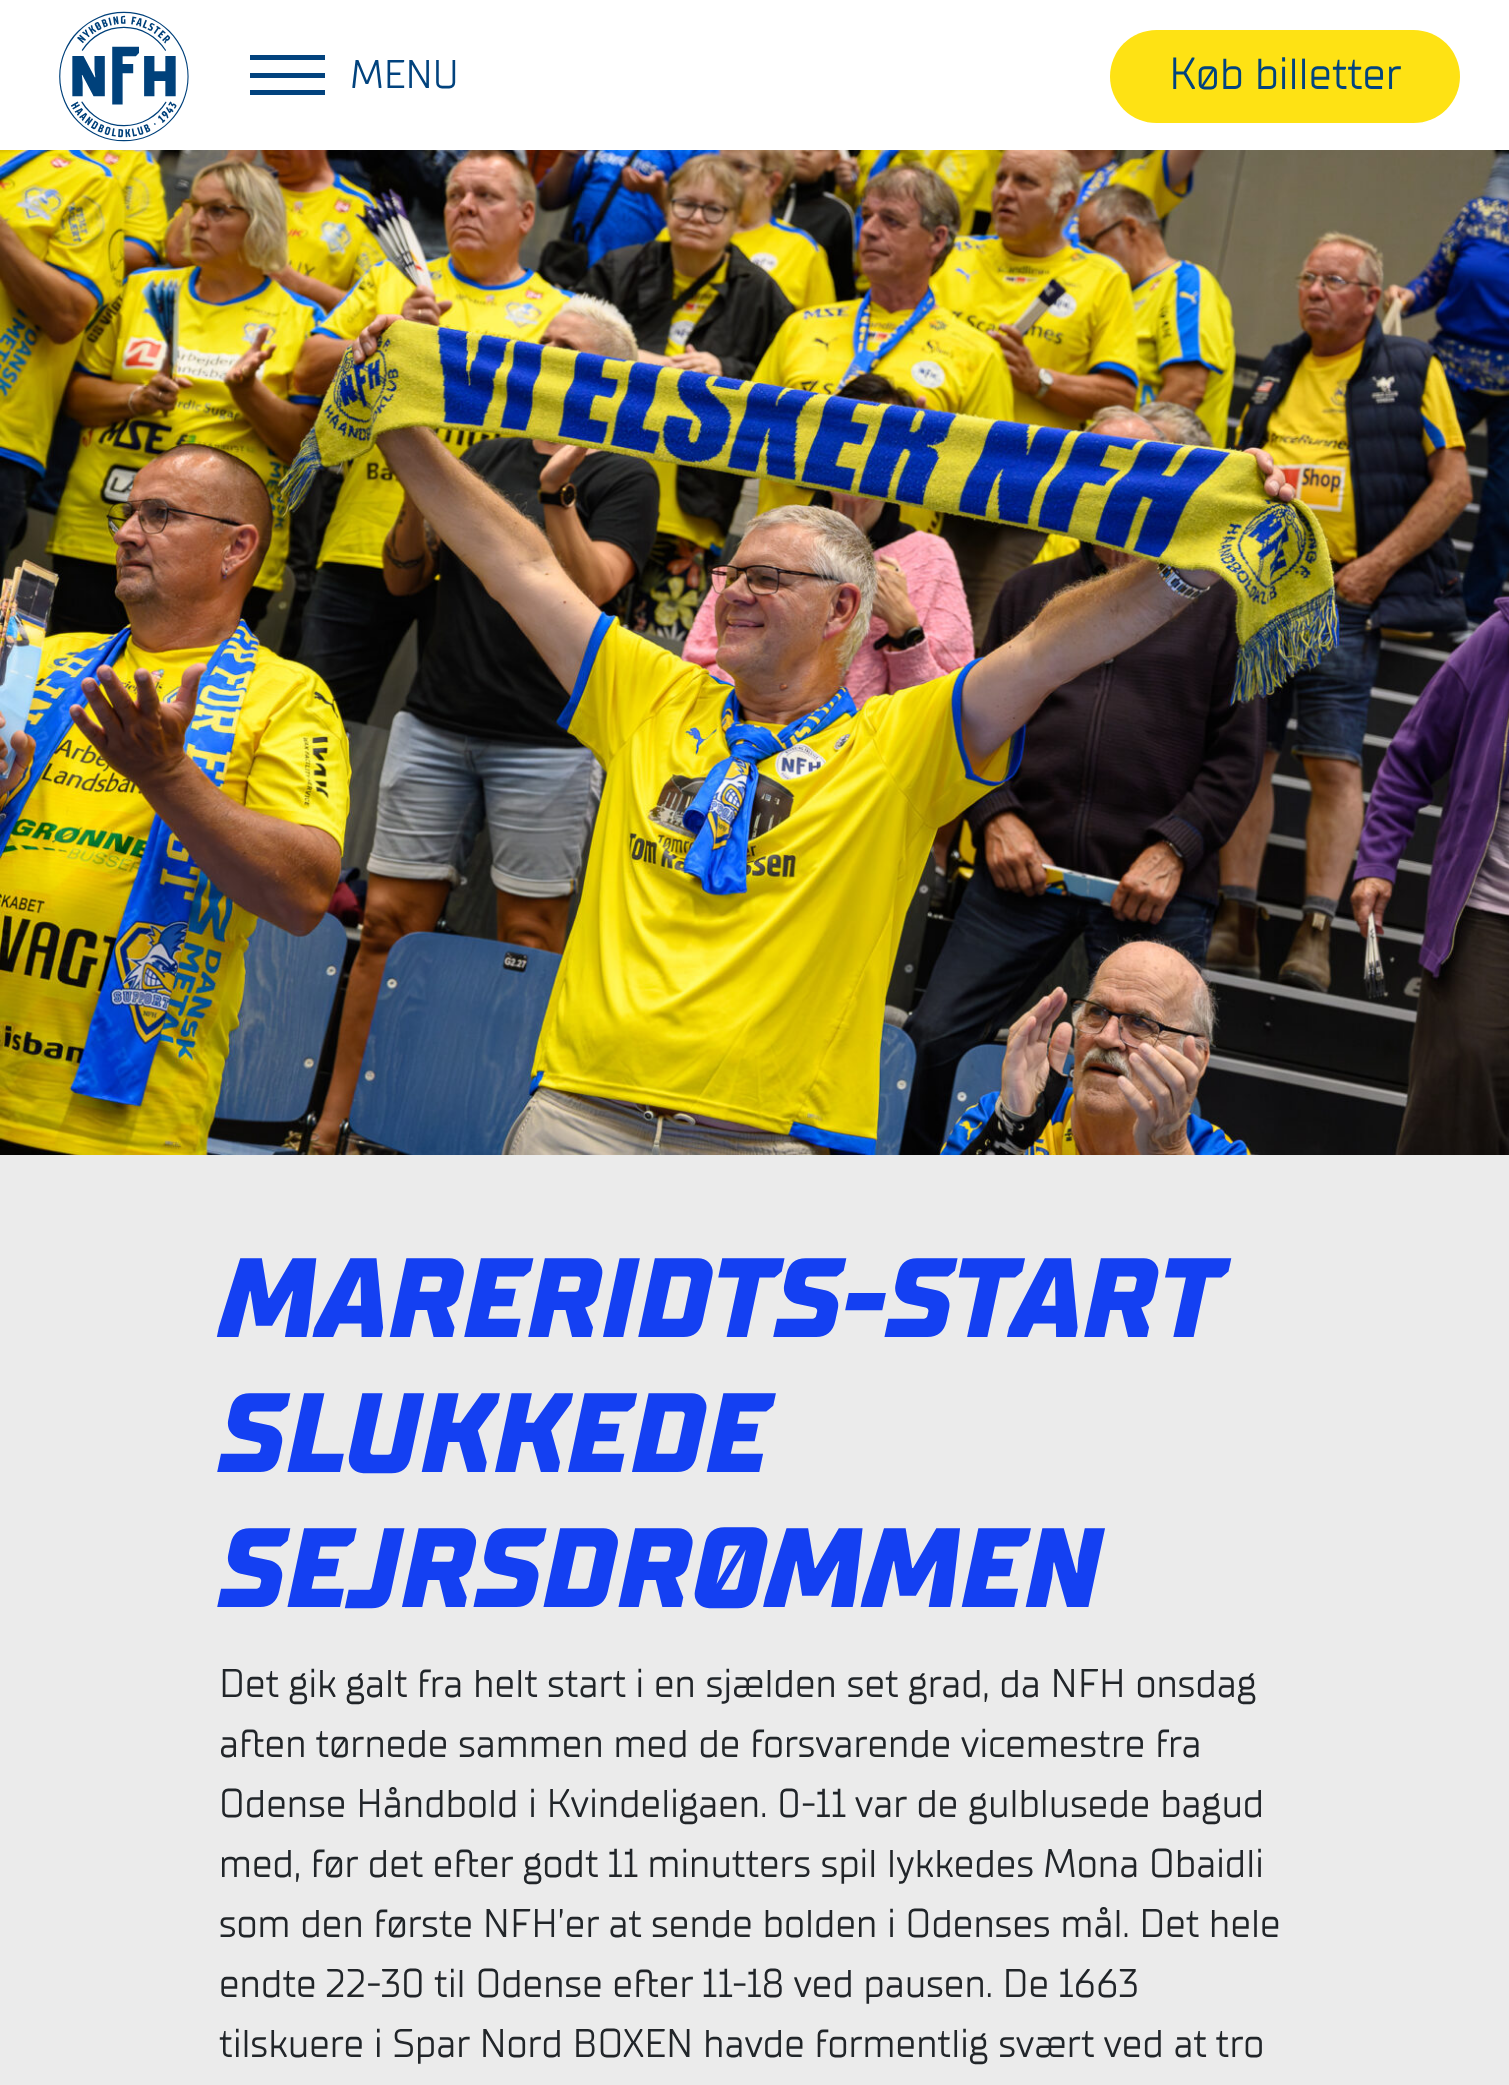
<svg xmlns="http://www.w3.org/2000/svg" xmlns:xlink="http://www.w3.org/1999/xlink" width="1509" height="2085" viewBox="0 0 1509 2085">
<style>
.cls-1{font:40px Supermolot;fill:#02437e}
.cls-2{font:45px Supermolot;fill:#02437e}
.cls-3{font:italic 800 112.5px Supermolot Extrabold;fill:#1440f2}
.cls-4{font:40px Supermolot;fill:#212529}
</style>
<rect width="100%" height="100%" fill="#ffffff"/>
<image xlink:href="image0.png" x="59" y="11" width="130" height="131"/>
<rect fill="#02437e" x="250" y="55" width="75" height="5"/>
<rect fill="#02437e" x="250" y="73" width="75" height="5"/>
<rect fill="#02437e" x="250" y="90" width="75" height="5"/>
<rect fill="#fee214" x="1110" y="30" width="350" height="93" rx="46.5"/>
<rect fill="#ebebeb" x="0" y="1155" width="1509" height="930"/>
<image xlink:href="image1.png" x="0" y="150" width="1509" height="1005"/>
<text class="cls-1" x="350" y="88">MENU</text>
<text class="cls-2" x="1169" y="89">Køb billetter</text>
<text class="cls-3"><tspan x="219" y="1337">MARERIDTS-START</tspan><tspan x="219" y="1472">SLUKKEDE</tspan><tspan x="219" y="1607">SEJRSDRØMMEN</tspan></text>
<text class="cls-4"><tspan x="219" y="1697">Det gik galt fra helt start i en sjælden set grad, da NFH onsdag</tspan><tspan x="219" y="1757">aften tørnede sammen med de forsvarende vicemestre fra</tspan><tspan x="219" y="1817">Odense Håndbold i Kvindeligaen. 0-11 var de gulblusede bagud</tspan><tspan x="219" y="1877">med, før det efter godt 11 minutters spil lykkedes Mona Obaidli</tspan><tspan x="219" y="1937">som den første NFH’er at sende bolden i Odenses mål. Det hele</tspan><tspan x="219" y="1997">endte 22-30 til Odense efter 11-18 ved pausen. De 1663</tspan><tspan x="219" y="2057">tilskuere i Spar Nord BOXEN havde formentlig svært ved at tro</tspan></text>
</svg>
